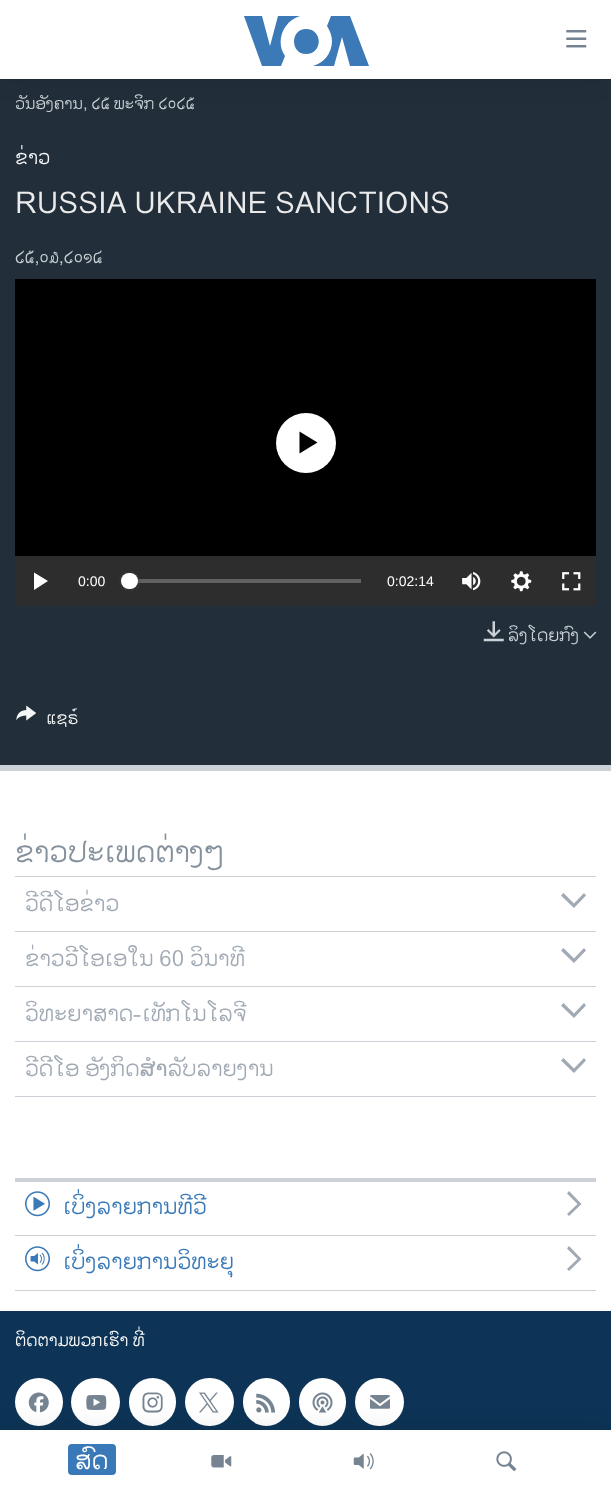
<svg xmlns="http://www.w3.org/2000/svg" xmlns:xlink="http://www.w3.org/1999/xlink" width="611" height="1492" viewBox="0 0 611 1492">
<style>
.cls-1{font:16.25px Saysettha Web;fill:#cbd1d6}
.cls-2{font:20px Saysettha Web;fill:#f6f7f8}
.cls-3{font:30px Saysettha Web;fill:#ebebeb}
.cls-4{font:17.5px Saysettha Web;fill:#cbd1d6}
.cls-5{font:14px Liberation Sans;fill:#ffffff}
.cls-6{font:17.5px Saysettha Web;fill:#f6f7f8}
.cls-7{font:30px Saysettha Web;fill:#84919d}
.cls-8{font:22.5px Saysettha Web;fill:#a1aab4}
.cls-9{font:22.5px Saysettha Web;fill:#3a79b7}
.cls-10{font:17.5px Saysettha Web;fill:#ffffff}
.cls-11{font:26px Saysettha Web;fill:#ffffff}
</style>
<rect width="100%" height="100%" fill="#ffffff"/>
<rect fill="#222f3a" x="0" y="79" width="611" height="686"/>
<rect fill="#cbd1d6" x="0" y="765" width="611" height="6"/>
<rect fill="#000000" x="15" y="279" width="581" height="277"/>
<circle fill="#ffffff" cx="306" cy="443" r="30"/>
<path fill="#000000" d="M299.5 453.5L317.5 442.5L299.5 431.5Z"/>
<rect fill="#2d2d2d" x="15" y="556" width="581" height="50"/>
<path fill="#ffffff" d="M34 590L48 581L34 572.5Z"/>
<rect fill="#626262" x="129" y="579" width="232" height="4"/>
<rect fill="#414144" filter="blur(2px)" x="121" y="573" width="17" height="16" rx="8"/>
<rect fill="#ffffff" x="121" y="573" width="17" height="16" rx="8"/>
<image xlink:href="image0.png" x="462" y="572" width="19" height="19"/>
<image xlink:href="image1.png" x="511" y="571" width="21" height="21"/>
<image xlink:href="image2.png" x="562" y="572" width="19" height="19"/>
<image xlink:href="image3.png" x="483" y="621" width="21" height="21"/>
<image xlink:href="image4.png" x="583" y="631" width="14" height="8"/>
<image xlink:href="image5.png" x="16" y="705" width="21" height="16"/>
<rect fill="#cbd1d6" x="15" y="876" width="581" height="1"/>
<rect fill="#cbd1d6" x="15" y="931" width="581" height="1"/>
<path fill="#a1aab4" d="M561 895.5L574 908L586 895.5L584 893L574 903.5L563.5 893Z"/>
<rect fill="#cbd1d6" x="15" y="986" width="581" height="1"/>
<path fill="#a1aab4" d="M561 950.5L574 963L586 950.5L584 948L574 958.5L563.5 948Z"/>
<rect fill="#cbd1d6" x="15" y="1041" width="581" height="1"/>
<path fill="#a1aab4" d="M561 1005.5L574 1018L586 1005.5L584 1003L574 1013.5L563.5 1003Z"/>
<rect fill="#cbd1d6" x="15" y="1096" width="581" height="1"/>
<path fill="#a1aab4" d="M561 1060.5L574 1073L586 1060.5L584 1058L574 1068.5L563.5 1058Z"/>
<rect fill="#cbd1d6" x="15" y="1178" width="581" height="4"/>
<rect fill="#cbd1d6" x="15" y="1235" width="581" height="1"/>
<image xlink:href="image6.png" x="25" y="1191" width="25" height="26"/>
<path fill="#a1aab4" d="M569 1216L581.5 1204L569 1191L567 1193.5L577.5 1204L567 1214Z"/>
<rect fill="#cbd1d6" x="15" y="1290" width="581" height="1"/>
<image xlink:href="image7.png" x="25" y="1246" width="25" height="26"/>
<path fill="#a1aab4" d="M569 1271L581.5 1259L569 1246L567 1248.5L577.5 1259L567 1269Z"/>
<rect fill="#0d3456" x="0" y="1311" width="611" height="119"/>
<circle fill="#ffffff" cx="39" cy="1402" r="24"/>
<image xlink:href="image8.png" x="28" y="1392" width="21" height="21"/>
<rect fill="#ffffff" x="71" y="1378" width="49" height="48" rx="24"/>
<image xlink:href="image9.png" x="86" y="1395" width="21" height="15"/>
<rect fill="#ffffff" x="129" y="1378" width="47" height="48" rx="23.5"/>
<image xlink:href="image10.png" x="142" y="1392" width="21" height="21"/>
<rect fill="#ffffff" x="185" y="1378" width="49" height="48" rx="24"/>
<image xlink:href="image11.png" x="199" y="1392" width="20" height="21"/>
<rect fill="#ffffff" x="243" y="1378" width="47" height="48" rx="23.5"/>
<image xlink:href="image12.png" x="256" y="1393" width="19" height="20"/>
<rect fill="#ffffff" x="299" y="1378" width="47" height="48" rx="23.5"/>
<image xlink:href="image13.png" x="312" y="1392" width="21" height="21"/>
<rect fill="#ffffff" x="355" y="1378" width="49" height="48" rx="24"/>
<image xlink:href="image14.png" x="370" y="1395" width="20" height="14"/>
<rect fill="#000000" fill-opacity="0.1" filter="blur(12.5px)" x="0" y="0" width="611" height="79"/>
<rect fill="#ffffff" x="0" y="0" width="611" height="79"/>
<path fill="#3b79b7" d="M285 56L281 66H262L244 16H262L270 46L278 16H300C283 21 275 42 285 56ZM306 29C290 29 290 54 306 54C323 54 323 29 306 29ZM332 41C332 53 324 63 313 66H334L342 37L350 66H369L350 16H331L327 26C330 31 332 36 332 41Z"/>
<image xlink:href="image15.png" x="566" y="30" width="21" height="18"/>
<rect fill="#000000" fill-opacity="0.1" filter="blur(12.5px)" x="0" y="1430" width="611" height="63"/>
<rect fill="#ffffff" x="0" y="1430" width="611" height="62"/>
<rect fill="#3a79b7" x="68" y="1444" width="48" height="31" rx="4"/>
<image xlink:href="image16.png" x="211" y="1455" width="21" height="13"/>
<image xlink:href="image17.png" x="353" y="1453" width="21" height="17"/>
<image xlink:href="image18.png" x="496" y="1451" width="21" height="21"/>
<text class="cls-1" x="15" y="109">ວັນອັງຄານ, ໒໕ ພະຈິກ ໒໐໒໕</text>
<text class="cls-2" x="15" y="164">ຂ່າວ</text>
<text class="cls-3" x="15" y="213">RUSSIA UKRAINE SANCTIONS</text>
<text class="cls-4" x="15" y="263">໒໕,໐໓,໒໐໑໔</text>
<text class="cls-5" x="78" y="586">0:00</text>
<text class="cls-5" x="387" y="586">0:02:14</text>
<text class="cls-4" x="508" y="641">ລິງໂດຍກົງ</text>
<text class="cls-6" x="46" y="724">ແຊຣ໌</text>
<text class="cls-7" x="15" y="862">ຂ່າວປະເພດຕ່າງໆ</text>
<text class="cls-8" x="25" y="911">ວີດີໂອຂ່າວ</text>
<text class="cls-8" x="25" y="966">ຂ່າວວີໂອເອໃນ 60 ວິນາທີ</text>
<text class="cls-8" x="25" y="1021">ວິທະຍາສາດ-ເທັກໂນໂລຈີ</text>
<text class="cls-8" x="25" y="1076">ວີດີໂອ ອັງກິດສຳລັບລາຍງານ</text>
<text class="cls-9" x="63" y="1214">ເບິ່ງລາຍການທີວີ</text>
<text class="cls-9" x="63" y="1269">ເບິ່ງລາຍການວິທະຍຸ</text>
<text class="cls-10" x="15" y="1346">ຕິດຕາມພວກເຮົາ ທີ່</text>
<text class="cls-11" x="75" y="1469">ສົດ</text>
</svg>
